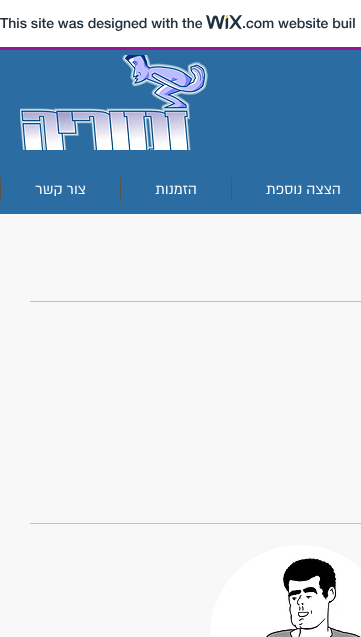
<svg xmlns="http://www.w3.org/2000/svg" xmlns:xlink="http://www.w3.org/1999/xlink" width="361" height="637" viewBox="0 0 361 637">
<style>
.cls-1{font:500 14px 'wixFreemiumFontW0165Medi';fill:#20303c}
.cls-2{font:16px 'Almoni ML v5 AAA';direction:rtl;fill:#ffffff}
</style>
<rect width="100%" height="100%" fill="#ffffff"/>
<rect fill="#a0138e" x="0" y="47" width="361" height="3"/>
<image xlink:href="image0.png" x="206" y="15" width="36" height="15"/>
<rect fill="#2b6ca3" x="0" y="50" width="361" height="164"/>
<image xlink:href="image1.png" x="20" y="55" width="188" height="95"/>
<rect fill="#585551" x="0" y="178" width="1" height="24"/>
<rect fill="#585551" x="120" y="178" width="1" height="24"/>
<rect fill="#585551" x="231" y="178" width="1" height="24"/>
<rect fill="#f8f8f8" x="0" y="214" width="361" height="423"/>
<rect fill="#c2bfb9" x="30" y="301" width="331" height="1"/>
<rect fill="#c2bfb9" x="30" y="523" width="331" height="1"/>
<image xlink:href="image2.png" x="210" y="545" width="151" height="92"/>
<text class="cls-1" x="0" y="28">This site was designed with the</text>
<text class="cls-1" x="242" y="28">.com website buil</text>
<text class="cls-2" x="86" y="194">צור קשר</text>
<text class="cls-2" x="197" y="194">הזמנות</text>
<text class="cls-2" x="341" y="194">הצצה נוספת</text>
</svg>
